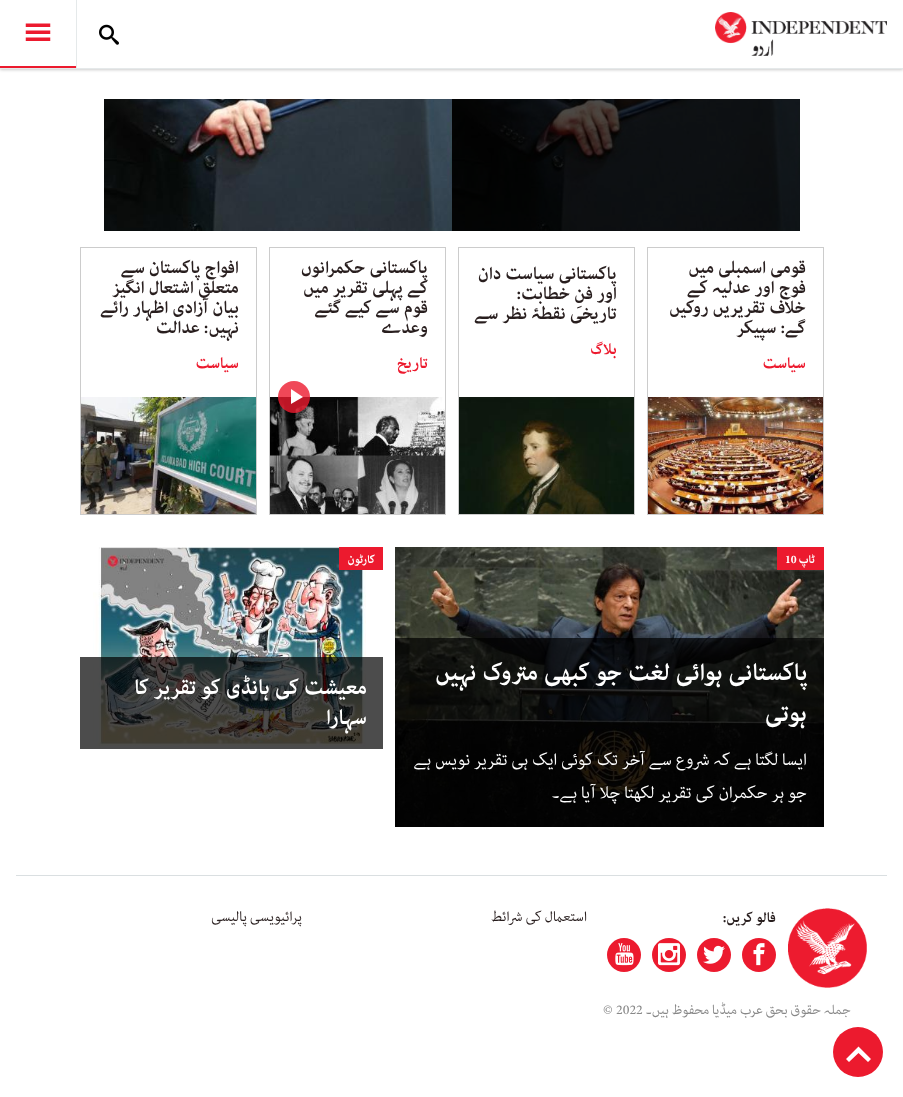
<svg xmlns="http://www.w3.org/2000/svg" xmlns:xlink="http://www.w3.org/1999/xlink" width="903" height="1097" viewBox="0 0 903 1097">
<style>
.cls-1{font:bold 25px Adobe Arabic;direction:rtl;fill:#281e1e}
.cls-2{font:bold 22px Adobe Arabic;direction:rtl;fill:#ec1a2e}
.cls-3{font:bold 16px Adobe Arabic;direction:rtl;fill:#ffffff}
.cls-4{font:bold 16px Adobe Arabic;fill:#ffffff}
.cls-5{font:bold 34px Adobe Arabic;direction:rtl;fill:#ffffff}
.cls-6{font:24px Adobe Arabic;direction:rtl;fill:#ffffff}
.cls-7{font:bold 30px Adobe Arabic;direction:rtl;fill:#ffffff}
.cls-8{font:bold 20px Adobe Arabic;direction:rtl;fill:#281e1e}
.cls-9{font:20px Adobe Arabic;direction:rtl;fill:#281e1e}
.cls-10{font:19px Adobe Arabic;direction:rtl;fill:#888888}
.cls-11{font:19px Adobe Arabic;fill:#888888}
</style>
<rect width="100%" height="100%" fill="#ffffff"/>
<rect fill="#000000" fill-opacity="0.2" filter="blur(1.5px)" x="0" y="1" width="903" height="69"/>
<rect fill="#ffffff" x="0" y="0" width="903" height="68"/>
<rect fill="#e5e9ea" x="0" y="68" width="903" height="1"/>
<image xlink:href="image0.png" x="715" y="12" width="172" height="44"/>
<rect fill="#e5e9ea" x="76" y="0" width="1" height="68"/>
<image xlink:href="image1.png" x="99" y="24" width="20" height="21"/>
<image xlink:href="image2.png" x="25" y="23" width="26" height="18"/>
<rect fill="#ec1a2e" x="0" y="66" width="76" height="2"/>
<image xlink:href="image3.png" x="452" y="99" width="348" height="132"/>
<image xlink:href="image4.png" x="104" y="99" width="348" height="132"/>
<rect fill="none" stroke="#cccccc" x="647.5" y="247.5" width="176" height="267"/>
<image xlink:href="image5.png" x="648" y="397" width="175" height="117"/>
<rect fill="none" stroke="#cccccc" x="458.5" y="247.5" width="176" height="267"/>
<image xlink:href="image6.png" x="459" y="397" width="175" height="117"/>
<rect fill="none" stroke="#cccccc" x="269.5" y="247.5" width="176" height="267"/>
<image xlink:href="image7.png" x="270" y="397" width="175" height="117"/>
<circle fill="#ec1a2e" fill-opacity="0.8" cx="294" cy="397" r="16"/>
<path fill="#ffffff" d="M291 389L303 397L291 404Z"/>
<rect fill="none" stroke="#cccccc" x="80.5" y="247.5" width="176" height="267"/>
<image xlink:href="image8.png" x="81" y="397" width="175" height="117"/>
<image xlink:href="image9.png" x="395" y="547" width="429" height="280"/>
<rect fill="#ec1a2e" x="777" y="547" width="47" height="23"/>
<rect fill="#000000" fill-opacity="0.7" x="395" y="638" width="429" height="189"/>
<image xlink:href="image10.png" x="93" y="547" width="273" height="201"/>
<rect fill="#ec1a2e" x="339" y="547" width="44" height="23"/>
<rect fill="#000000" fill-opacity="0.7" x="80" y="657" width="303" height="92"/>
<rect fill="#dadfe1" x="16" y="875" width="871" height="1"/>
<image xlink:href="image11.png" x="788" y="908" width="79" height="80"/>
<circle fill="#ec1a2e" cx="759" cy="955" r="17"/>
<image xlink:href="image12.png" x="753" y="943" width="12" height="23"/>
<circle fill="#ec1a2e" cx="714" cy="955" r="17"/>
<image xlink:href="image13.png" x="703" y="945" width="22" height="19"/>
<circle fill="#ec1a2e" cx="669" cy="955" r="17"/>
<image xlink:href="image14.png" x="658" y="943" width="22" height="23"/>
<circle fill="#ec1a2e" cx="624" cy="955" r="17"/>
<image xlink:href="image15.png" x="615" y="943" width="19" height="23"/>
<circle fill="#ec1a2e" cx="858" cy="1052" r="25"/>
<path fill="#ffffff" d="M846 1059L849 1062L858.5 1053L868 1062L871 1059L858.5 1046.5Z"/>
<text class="cls-1"><tspan x="806" y="273" word-spacing="-1">قومی اسمبلی میں</tspan><tspan x="806" y="293" word-spacing="-1">فوج اور عدلیہ کے</tspan><tspan x="806" y="313" word-spacing="-1">خلاف تقریریں روکیں</tspan><tspan x="806" y="333" word-spacing="-1">گے: سپیکر</tspan></text>
<text class="cls-2" x="806" y="368">سیاست</text>
<text class="cls-1"><tspan x="617" y="279" word-spacing="-1">پاکستانی سیاست دان</tspan><tspan x="617" y="299" word-spacing="-1">اور فنِ خطابت:</tspan><tspan x="617" y="319" word-spacing="-1">تاریخی نقطۂ نظر سے</tspan></text>
<text class="cls-2" x="617" y="354">بلاگ</text>
<text class="cls-1"><tspan x="428" y="273" word-spacing="-1">پاکستانی حکمرانوں</tspan><tspan x="428" y="293" word-spacing="-1">کے پہلی تقریر میں</tspan><tspan x="428" y="313" word-spacing="-1">قوم سے کیے گئے</tspan><tspan x="428" y="333">وعدے</tspan></text>
<text class="cls-2" x="428" y="368">تاریخ</text>
<text class="cls-1"><tspan x="239" y="273" word-spacing="-1">افواج پاکستان سے</tspan><tspan x="239" y="293" word-spacing="-1">متعلق اشتعال انگیز</tspan><tspan x="239" y="313" word-spacing="-1">بیان آزادی اظہار رائے</tspan><tspan x="239" y="333" word-spacing="-1">نہیں: عدالت</tspan></text>
<text class="cls-2" x="239" y="368">سیاست</text>
<text class="cls-3" x="815" y="563">ٹاپ</text>
<text class="cls-4" x="785" y="563">10</text>
<text class="cls-5" x="808" y="680" word-spacing="-1">پاکستانی ہوائی لغت جو کبھی متروک نہیں</text>
<text class="cls-5" x="807" y="721">ہوتی</text>
<text class="cls-6"><tspan x="807" y="765" word-spacing="-1">ایسا لگتا ہے کہ شروع سے آخر تک کوئی ایک ہی تقریر نویس ہے</tspan><tspan x="807" y="798" word-spacing="-1">جو ہر حکمران کی تقریر لکھتا چلا آیا ہے۔</tspan></text>
<text class="cls-3" x="375" y="563">کارٹون</text>
<text class="cls-7"><tspan x="367" y="694" word-spacing="-1">معیشت کی ہانڈی کو تقریر کا</tspan><tspan x="367" y="724">سہارا</tspan></text>
<text class="cls-8" x="776" y="922" word-spacing="-1">فالو کریں:</text>
<text class="cls-9" x="587" y="921" word-spacing="-1">استعمال کی شرائط</text>
<text class="cls-9" x="302" y="921" word-spacing="-1">پرائیویسی پالیسی</text>
<text class="cls-10" x="851" y="1014" word-spacing="-1">جملہ حقوق بحق عرب میڈیا محفوظ ہیں۔</text>
<text class="cls-11" x="616" y="1014">2022</text>
<text class="cls-11" x="603" y="1014">©</text>
</svg>
